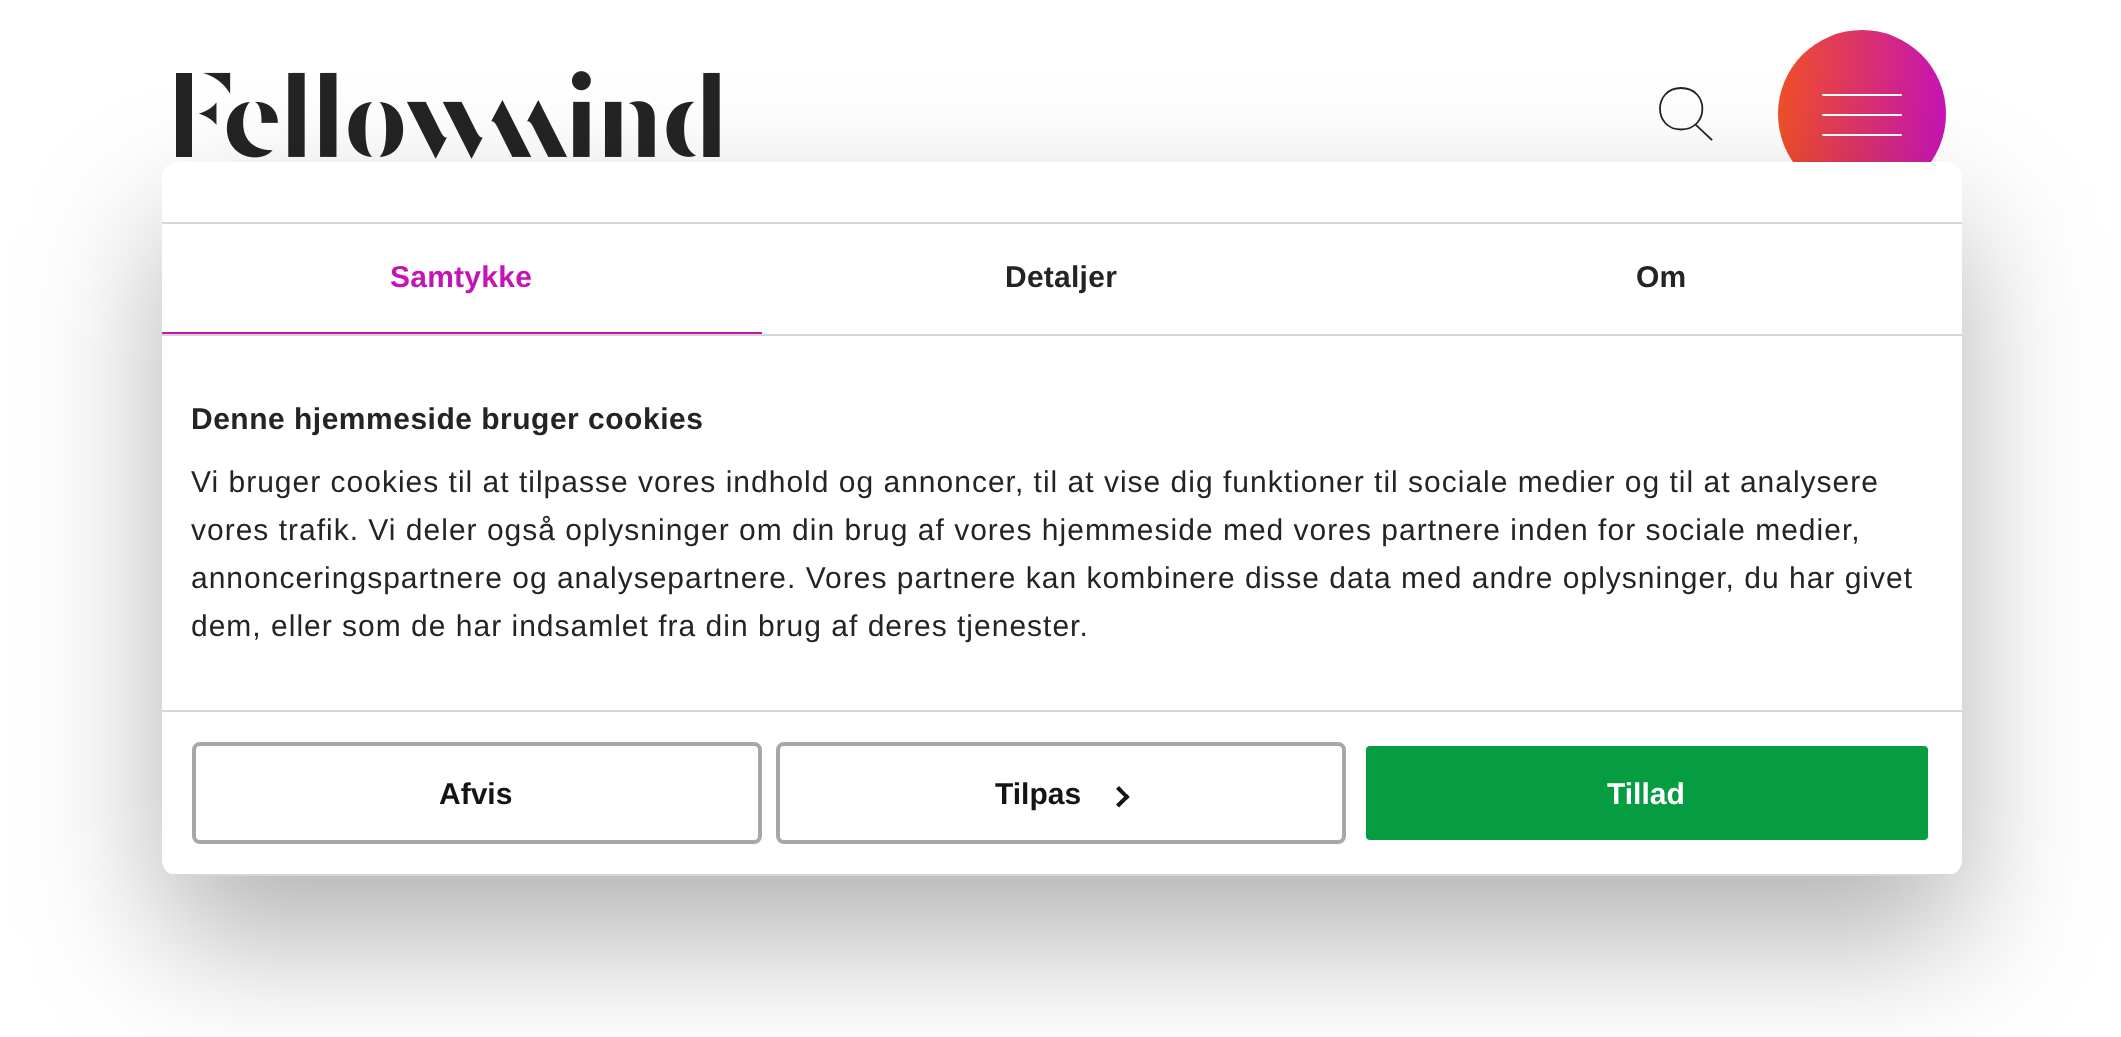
<svg xmlns="http://www.w3.org/2000/svg" xmlns:xlink="http://www.w3.org/1999/xlink" width="2121" height="1037" viewBox="0 0 2121 1037">
<style>
.cls-1{font:bold 30px Liberation Sans;letter-spacing:0.25px;fill:#c514b4}
.cls-2{font:bold 30px Liberation Sans;letter-spacing:0.25px;fill:#252424}
.cls-3{font:bold 30px Liberation Sans;letter-spacing:0.5px;fill:#252424}
.cls-4{font:30px Liberation Sans;letter-spacing:1px;fill:#252424}
.cls-5{font:bold 30px Liberation Sans;fill:#141414}
.cls-6{font:bold 30px Liberation Sans;fill:#ffffff}
</style>
<defs>
<linearGradient id="g1" gradientUnits="userSpaceOnUse" x1="1778" y1="114" x2="1946" y2="114"><stop offset="0" stop-color="#f05027"/><stop offset="1" stop-color="#c514b4"/></linearGradient>
<clipPath id="clip1"><rect x="162" y="162" width="1800" height="714" rx="16"/></clipPath>
</defs>
<rect width="100%" height="100%" fill="#ffffff"/>
<image xlink:href="image0.png" x="176" y="71" width="544" height="88"/>
<path fill="none" stroke="#252424" stroke-width="1.8" stroke-linecap="square" d="M1681 129.5C1709.5 129.5 1709.5 88 1681 88C1653 88 1653 129.5 1681 129.5ZM1711.5 139.5L1696.5 125.5"/>
<circle fill="url(#g1)" cx="1862" cy="114" r="84"/>
<rect fill="#ffffff" x="1822" y="114" width="80" height="2" rx="1"/>
<rect fill="#ffffff" x="1822" y="94" width="80" height="2" rx="1"/>
<rect fill="#ffffff" x="1822" y="134" width="80" height="2" rx="1"/>
<rect fill="#000000" fill-opacity="0.3" filter="blur(68px)" x="162" y="226" width="1800" height="714" rx="16"/>
<rect fill="#ffffff" x="162" y="162" width="1800" height="714" rx="16"/>
<rect fill="#d6d6d6" x="162" y="222" width="1800" height="2"/>
<rect fill="#d6d6d6" x="162" y="334" width="1800" height="2"/>
<rect fill="#c514b4" x="162" y="332" width="600" height="2"/>
<rect fill="#d6d6d6" x="162" y="710" width="1800" height="2"/>
<g clip-path="url(#clip1)">
<rect fill="#d6d6d6" x="162" y="874" width="1800" height="2"/>
</g>
<rect fill="none" stroke="#a8a7a7" stroke-width="4" x="194" y="744" width="566" height="98" rx="6"/>
<rect fill="none" stroke="#a8a7a7" stroke-width="4" x="778" y="744" width="566" height="98" rx="6"/>
<path fill="#141414" d="M1119 786L1129.5 797L1127 799.5L1116 789Z"/>
<path fill="#141414" d="M1127 794L1129.5 797L1119 807.5L1116 804.5Z"/>
<rect fill="#069d42" stroke="#ffffff" stroke-width="4" x="1364" y="744" width="566" height="98" rx="6"/>
<text class="cls-1" x="390" y="287">Samtykke</text>
<text class="cls-2" x="1005" y="287">Detaljer</text>
<text class="cls-2" x="1636" y="287">Om</text>
<text class="cls-3" x="191" y="429">Denne hjemmeside bruger cookies</text>
<text class="cls-4"><tspan x="191" y="492">Vi bruger cookies til at tilpasse vores indhold og annoncer, til at vise dig funktioner til sociale medier og til at analysere</tspan><tspan x="191" y="540">vores trafik. Vi deler også oplysninger om din brug af vores hjemmeside med vores partnere inden for sociale medier,</tspan><tspan x="191" y="588">annonceringspartnere og analysepartnere. Vores partnere kan kombinere disse data med andre oplysninger, du har givet</tspan><tspan x="191" y="636">dem, eller som de har indsamlet fra din brug af deres tjenester.</tspan></text>
<text class="cls-5" x="439" y="804">Afvis</text>
<text class="cls-5" x="995" y="804">Tilpas</text>
<text class="cls-6" x="1607" y="804">Tillad</text>
</svg>
